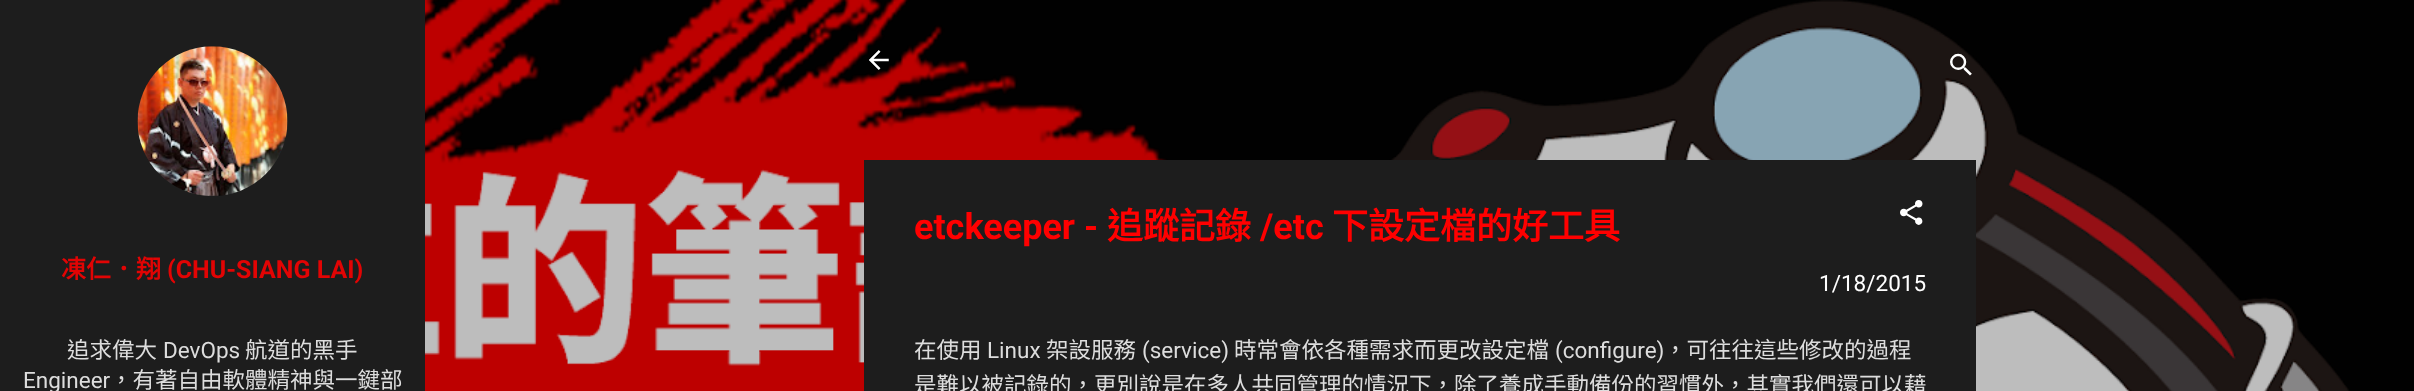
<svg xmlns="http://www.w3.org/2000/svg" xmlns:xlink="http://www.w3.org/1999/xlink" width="2414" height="391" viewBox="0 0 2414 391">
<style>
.cls-1{font:bold 25px Noto Sans CJK TC;fill:#e20404}
.cls-2{font:bold 25px Roboto;fill:#e20404}
.cls-3{font:22.5px Noto Sans CJK TC;fill:#dddddd}
.cls-4{font:22.5px Roboto;fill:#dddddd}
.cls-5{font:bold 36px Roboto;fill:#ff0000}
.cls-6{font:bold 36px Noto Sans CJK TC;fill:#ff0000}
.cls-7{font:22.5px Roboto;fill:#ffffff}
</style>
<rect width="100%" height="100%" fill="#010101"/>
<rect fill="#1d1d1d" x="0" y="0" width="425" height="391"/>
<image xlink:href="image0.png" x="137" y="46" width="151" height="150"/>
<image xlink:href="image1.png" x="425" y="0" width="1925" height="391"/>
<image xlink:href="image2.png" x="869" y="50" width="20" height="20"/>
<image xlink:href="image3.png" x="1950" y="53" width="22" height="23"/>
<rect fill="#1d1d1d" x="864" y="160" width="1112" height="231"/>
<image xlink:href="image4.png" x="1900" y="200" width="23" height="25"/>
<text class="cls-1" x="61" y="278">凍仁．翔</text>
<text class="cls-2" x="167" y="278">(CHU-SIANG LAI)</text>
<text class="cls-3" x="67" y="358">追求偉大</text>
<text class="cls-4" x="163" y="358">DevOps</text>
<text class="cls-3" x="245" y="358">航道的黑手</text>
<text class="cls-4" x="23" y="388">Engineer</text>
<text class="cls-3" x="110" y="388">，有著自由軟體精神與一鍵部</text>
<text class="cls-5" x="914" y="239">etckeeper -</text>
<text class="cls-6" x="1107" y="239">追蹤記錄</text>
<text class="cls-5" x="1260" y="239">/etc</text>
<text class="cls-6" x="1332" y="239">下設定檔的好工具</text>
<text class="cls-7" x="1819" y="291">1/18/2015</text>
<text class="cls-3" x="914" y="358">在使用</text>
<text class="cls-4" x="987" y="358">Linux</text>
<text class="cls-3" x="1046" y="358">架設服務</text>
<text class="cls-4" x="1142" y="358">(service)</text>
<text class="cls-3" x="1234" y="358">時常會依各種需求而更改設定檔</text>
<text class="cls-4" x="1555" y="358">(configure)</text>
<text class="cls-3" x="1664" y="358">，可往往這些修改的過程</text>
<text class="cls-3" x="914" y="393">是難以被記錄的，更別說是在多人共同管理的情況下，除了養成手動備份的習慣外，其實我們還可以藉</text>
</svg>
